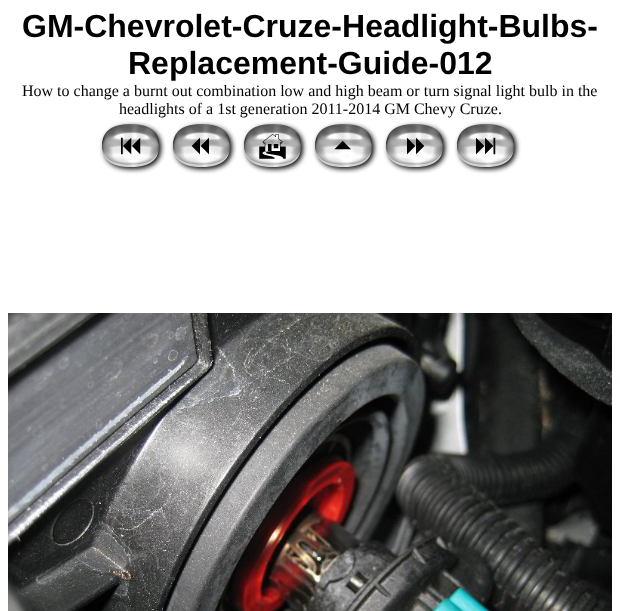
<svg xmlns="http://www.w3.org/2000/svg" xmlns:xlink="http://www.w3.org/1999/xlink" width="620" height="611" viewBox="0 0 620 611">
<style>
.cls-1{font:bold 32px Liberation Sans;fill:#000000}
.cls-2{font:16px Liberation Serif;fill:#000000}
</style>
<rect width="100%" height="100%" fill="#ffffff"/>
<image xlink:href="image0.png" x="99" y="121" width="67" height="53"/>
<image xlink:href="image1.png" x="170" y="121" width="67" height="53"/>
<image xlink:href="image2.png" x="241" y="121" width="67" height="53"/>
<image xlink:href="image3.png" x="312" y="121" width="67" height="53"/>
<image xlink:href="image4.png" x="383" y="121" width="67" height="53"/>
<image xlink:href="image5.png" x="454" y="121" width="67" height="53"/>
<image xlink:href="image6.png" x="8" y="313" width="604" height="298"/>
<text class="cls-1" x="22" y="37">GM-Chevrolet-Cruze-Headlight-Bulbs-</text>
<text class="cls-1" x="128" y="74">Replacement-Guide-012</text>
<text class="cls-2" x="22" y="96">How to change a burnt out combination low and high beam or turn signal light bulb in the</text>
<text class="cls-2" x="119" y="114">headlights of a 1st generation 2011-2014 GM Chevy Cruze.</text>
</svg>
